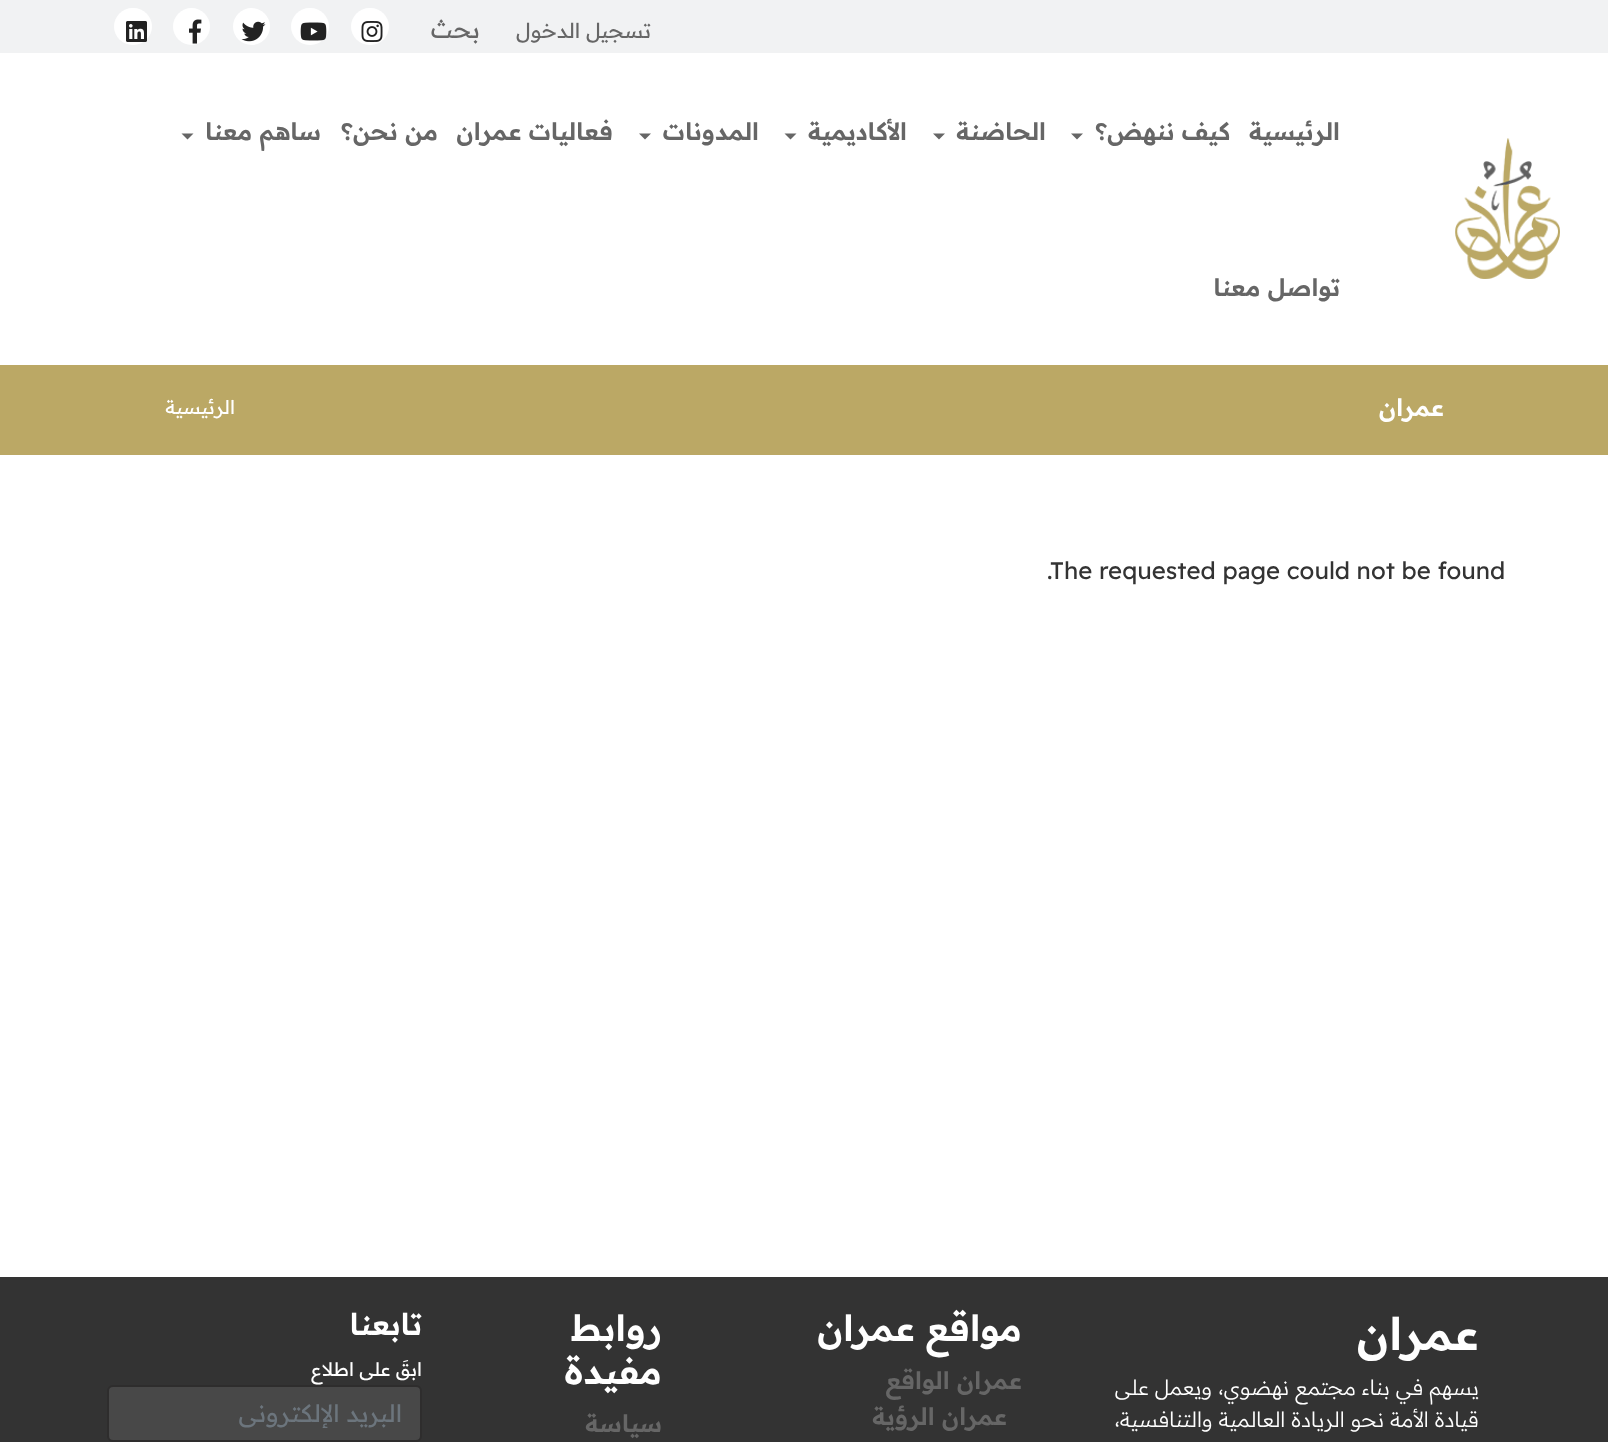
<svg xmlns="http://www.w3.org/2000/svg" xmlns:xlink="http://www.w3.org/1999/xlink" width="1608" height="1442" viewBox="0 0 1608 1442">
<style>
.cls-1{font:20.5px Readex Pro;direction:rtl;fill:#666666}
.cls-2{font:24px Readex Pro;direction:rtl;fill:#666666}
.cls-3{font:600 24px Readex Pro;direction:rtl;fill:#666666}
.cls-4{font:600 24px Readex Pro;direction:rtl;fill:#ffffff}
.cls-5{font:19px Readex Pro;direction:rtl;fill:#ffffff}
.cls-6{font:24px Readex Pro;fill:#333333}
.cls-7{font:600 45px Readex Pro;direction:rtl;fill:#ffffff}
.cls-8{font:300 21px Readex Pro;direction:rtl;fill:#ffffff}
.cls-9{font:600 36px Readex Pro;direction:rtl;fill:#ffffff}
.cls-10{font:600 30px Readex Pro;direction:rtl;fill:#ffffff}
.cls-11{font:18.75px Readex Pro;direction:rtl;fill:#ffffff}
.cls-12{font:24px Readex Pro;direction:rtl;fill:#6c757d}
</style>
<defs>
<clipPath id="clip1"><rect x="126" y="1398" width="276" height="30"/></clipPath>
</defs>
<rect width="100%" height="100%" fill="#ffffff"/>
<rect fill="#f1f2f3" x="0" y="0" width="1608" height="53"/>
<rect fill="#ffffff" x="351" y="8" width="38" height="37" rx="18.5"/>
<image xlink:href="image0.png" x="361" y="21" width="22" height="21"/>
<rect fill="#ffffff" x="291" y="8" width="38" height="37" rx="18.5"/>
<image xlink:href="image1.png" x="300" y="22" width="27" height="19"/>
<circle fill="#ffffff" cx="251.5" cy="26.5" r="18.5"/>
<image xlink:href="image2.png" x="241" y="21" width="25" height="21"/>
<circle fill="#ffffff" cx="191.5" cy="26.5" r="18.5"/>
<image xlink:href="image3.png" x="189" y="19" width="13" height="25"/>
<rect fill="#ffffff" x="114" y="8" width="38" height="37" rx="18.5"/>
<image xlink:href="image4.png" x="126" y="21" width="21" height="21"/>
<image xlink:href="image5.png" x="1455" y="138" width="105" height="141"/>
<path fill="#666666" d="M1071 133.5H1083L1077 139.5Z"/>
<path fill="#666666" d="M933 133.5H945L939 139.5Z"/>
<path fill="#666666" d="M784.5 133.5H796.5L790.5 139.5Z"/>
<path fill="#666666" d="M639 133.5H651L645 139.5Z"/>
<path fill="#666666" d="M181.5 133.5H193.5L187.5 139.5Z"/>
<rect fill="#bba865" x="0" y="365" width="1608" height="90"/>
<rect fill="#333333" x="0" y="1277" width="1608" height="165"/>
<rect fill="#484848" stroke="#2e2d2d" stroke-width="2" x="108" y="1386" width="313" height="55" rx="5"/>
<text class="cls-1" x="651" y="38">تسجيل الدخول</text>
<text class="cls-2" x="480" y="38">بحث</text>
<text class="cls-3" x="1340" y="140">الرئيسية</text>
<text class="cls-3" x="1230" y="140">كيف ننهض؟</text>
<text class="cls-3" x="1046" y="140">الحاضنة</text>
<text class="cls-3" x="907" y="140">الأكاديمية</text>
<text class="cls-3" x="759" y="140">المدونات</text>
<text class="cls-3" x="613" y="140">فعاليات عمران</text>
<text class="cls-3" x="438" y="140">من نحن؟</text>
<text class="cls-3" x="321" y="140">ساهم معنا</text>
<text class="cls-3" x="1340" y="296">تواصل معنا</text>
<text class="cls-4" x="1444" y="416">عمران</text>
<text class="cls-5" x="235" y="414">الرئيسية</text>
<text class="cls-6" x="1047" y="579">.The requested page could not be found</text>
<text class="cls-7" x="1479" y="1350">عمران</text>
<text class="cls-8"><tspan x="1479" y="1395">يسهم في بناء مجتمع نهضوي، ويعمل على</tspan><tspan x="1479" y="1427">قيادة الأمة نحو الريادة العالمية والتنافسية،</tspan></text>
<text class="cls-9" x="1022" y="1341">مواقع عمران</text>
<text class="cls-3" x="1022" y="1389">عمران الواقع</text>
<text class="cls-3" x="1007" y="1425">عمران الرؤية</text>
<text class="cls-9"><tspan x="662" y="1341">روابط</tspan><tspan x="662" y="1384">مفيدة</tspan></text>
<text class="cls-3" x="662" y="1432">سياسة</text>
<text class="cls-10" x="422" y="1335">تابعنا</text>
<text class="cls-11" x="422" y="1376">ابقَ على اطلاع</text>
<g clip-path="url(#clip1)">
<text class="cls-12" x="402" y="1422">البريد الإلكتروني</text>
</g>
</svg>
